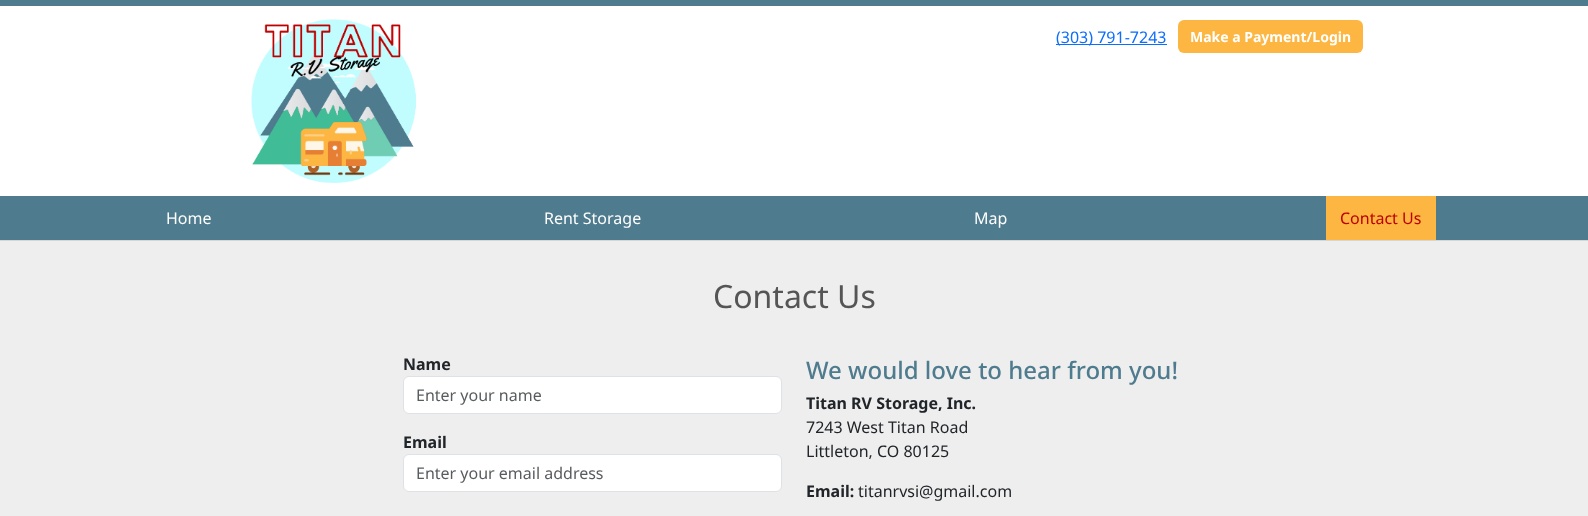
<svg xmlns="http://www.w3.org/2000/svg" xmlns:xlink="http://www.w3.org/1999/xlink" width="1588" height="516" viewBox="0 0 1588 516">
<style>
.cls-1{font:16px Noto Sans;fill:#0d6efd}
.cls-2{font:bold 14px Noto Sans;fill:#ffffff}
.cls-3{font:16px Noto Sans;fill:#ffffff}
.cls-4{font:16px Noto Sans;fill:#bd0000}
.cls-5{font:32px Noto Sans;fill:#555555}
.cls-6{font:bold 16px Noto Sans;fill:#212529}
.cls-7{font:16px Noto Sans;fill:#595c5f}
.cls-8{font:500 24px Noto Sans;fill:#4e7b8d}
.cls-9{font:16px Noto Sans;fill:#212529}
</style>
<rect width="100%" height="100%" fill="#eeeeee"/>
<rect fill="#d6d6d6" x="0" y="240" width="1588" height="1"/>
<rect fill="#ffffff" x="0" y="6" width="1588" height="190"/>
<rect fill="#4e7b8d" x="0" y="0" width="1588" height="6"/>
<image xlink:href="image0.png" x="251" y="19" width="165" height="164"/>
<rect fill="#0d6efd" x="1056" y="44" width="111" height="1"/>
<rect fill="#fcb641" x="1178" y="20" width="185" height="33" rx="6"/>
<rect fill="#4e7b8d" x="0" y="196" width="1588" height="44"/>
<rect fill="#fcb641" x="1326" y="196" width="110" height="44"/>
<rect fill="#ffffff" stroke="#dee2e6" x="403.5" y="376.5" width="378" height="37" rx="5.5"/>
<rect fill="#ffffff" stroke="#dee2e6" x="403.5" y="454.5" width="378" height="37" rx="5.5"/>
<text class="cls-1" x="1056" y="43">(303) 791-7243</text>
<text class="cls-2" x="1190" y="42">Make a Payment/Login</text>
<text class="cls-3" x="166" y="224">Home</text>
<text class="cls-3" x="544" y="224">Rent Storage</text>
<text class="cls-3" x="974" y="224">Map</text>
<text class="cls-4" x="1340" y="224">Contact Us</text>
<text class="cls-5" x="713" y="308">Contact Us</text>
<text class="cls-6" x="403" y="370">Name</text>
<text class="cls-7" x="416" y="401">Enter your name</text>
<text class="cls-6" x="403" y="448">Email</text>
<text class="cls-7" x="416" y="479">Enter your email address</text>
<text class="cls-8" x="806" y="379">We would love to hear from you!</text>
<text class="cls-6" x="806" y="409">Titan RV Storage, Inc.</text>
<text class="cls-9"><tspan x="806" y="433">7243 West Titan Road</tspan><tspan x="806" y="457">Littleton, CO 80125</tspan></text>
<text class="cls-6" x="806" y="497">Email:</text>
<text class="cls-9" x="858" y="497">titanrvsi@gmail.com</text>
</svg>
